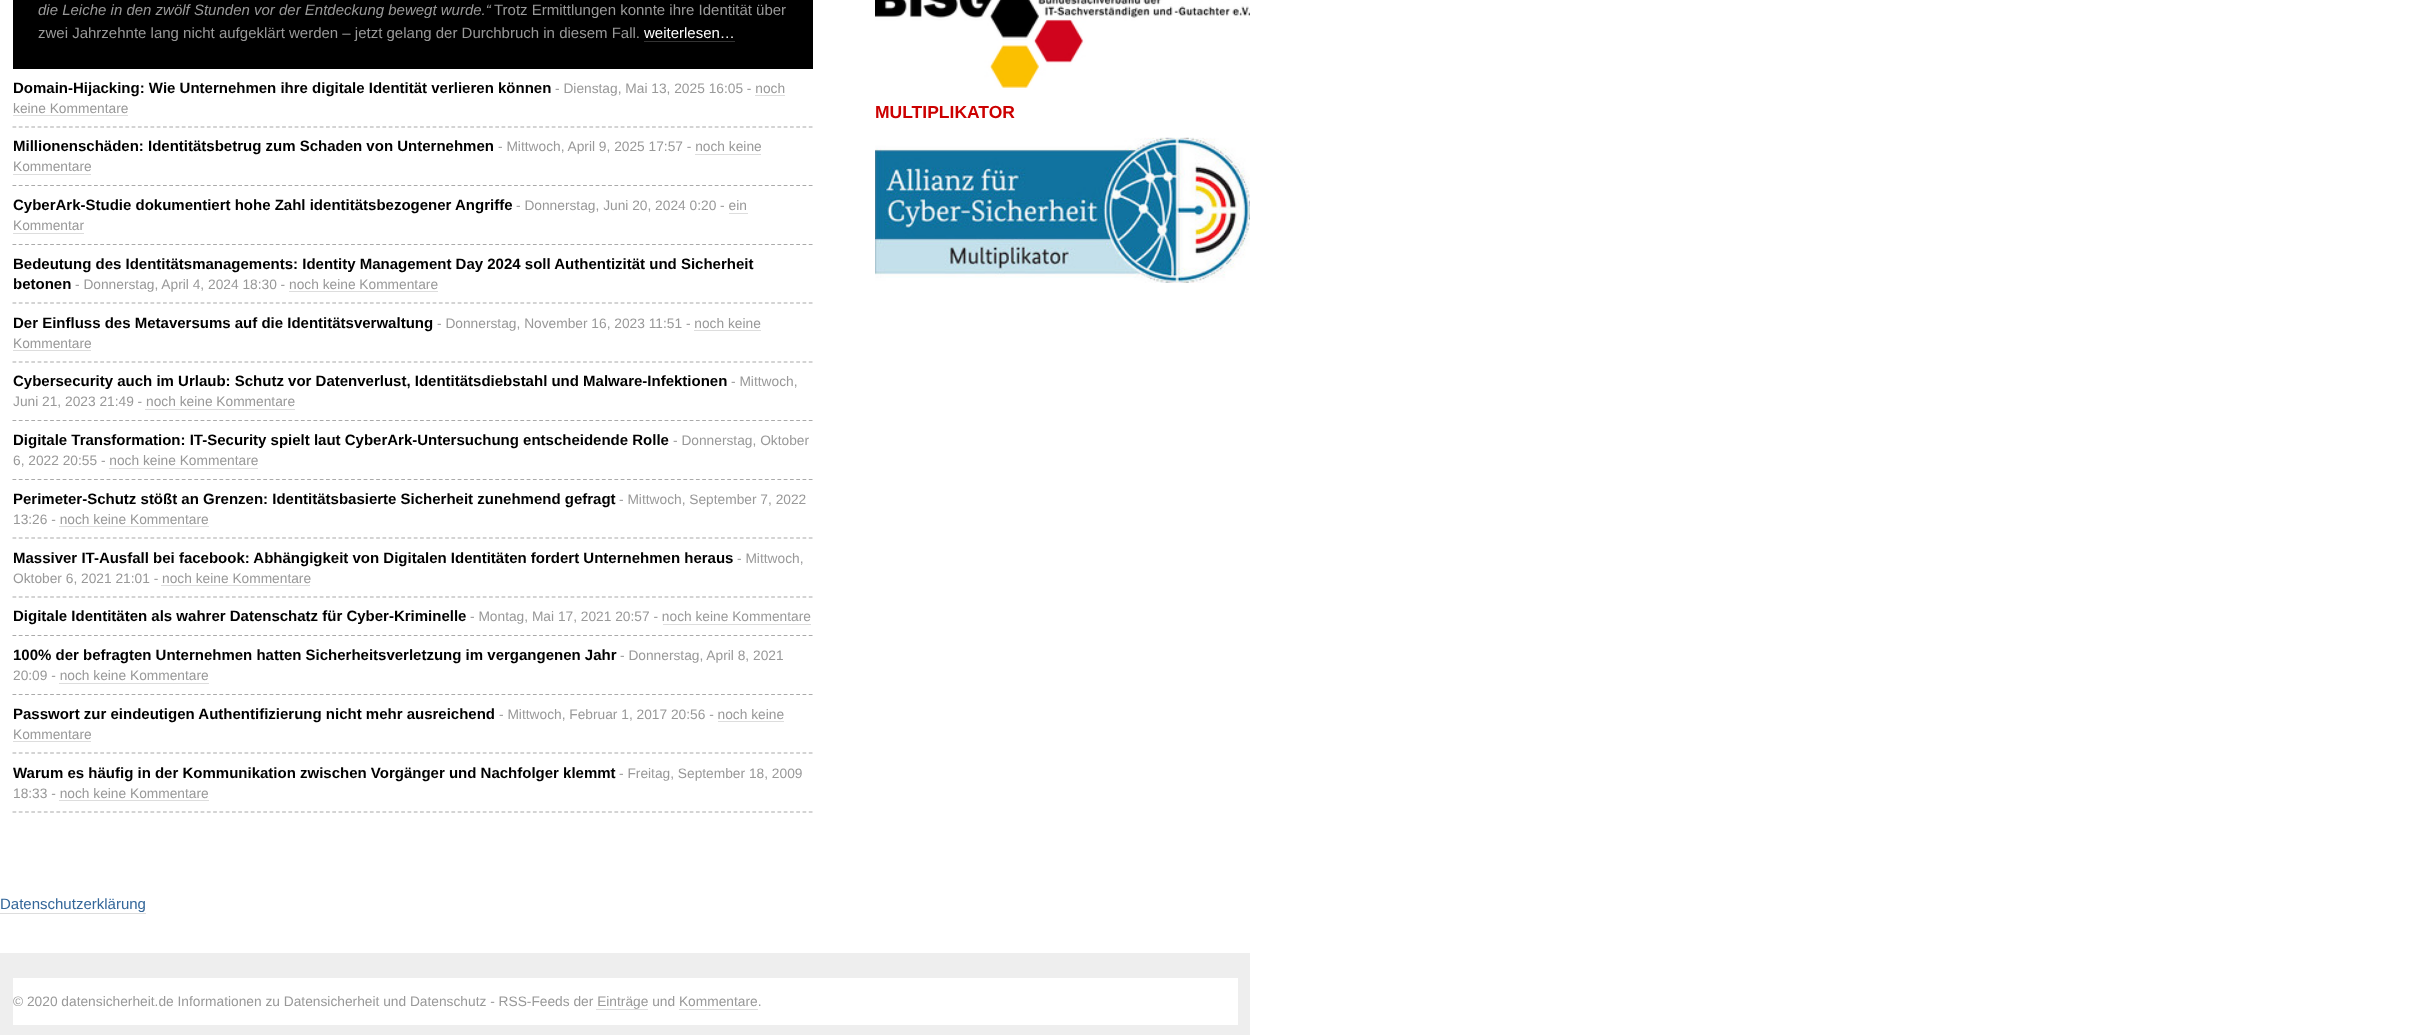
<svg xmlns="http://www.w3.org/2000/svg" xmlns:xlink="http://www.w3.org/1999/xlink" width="2430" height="1035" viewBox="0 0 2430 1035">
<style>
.cls-1{font:italic 15px Liberation Sans;fill:#999999}
.cls-2{font:15px Liberation Sans;fill:#999999}
.cls-3{font:15px Liberation Sans;fill:#ffffff}
.cls-4{font:bold 15px Liberation Sans;fill:#000000}
.cls-5{font:13.75px Liberation Sans;fill:#999999}
.cls-6{font:bold 17.5px Liberation Sans;fill:#cc0000}
.cls-7{font:15px Liberation Sans;fill:#336699}
</style>
<rect width="100%" height="100%" fill="#ffffff"/>
<rect fill="#000000" x="13" y="0" width="800" height="69"/>
<rect fill="#333333" x="644" y="41" width="91" height="1"/>
<path fill="none" stroke="#aaaaaa" stroke-width="1.2" stroke-dasharray="3.75 2.52" d="M12.5 127H812.5"/>
<rect fill="#dddddd" x="13" y="115" width="115" height="1"/>
<path fill="none" stroke="#aaaaaa" stroke-width="1.2" stroke-dasharray="3.75 2.52" d="M12.5 185.5H812.5"/>
<rect fill="#dddddd" x="695" y="154" width="66" height="1"/>
<rect fill="#dddddd" x="13" y="174" width="78" height="1"/>
<path fill="none" stroke="#aaaaaa" stroke-width="1.2" stroke-dasharray="3.75 2.52" d="M12.5 244.5H812.5"/>
<rect fill="#dddddd" x="729" y="213" width="19" height="1"/>
<rect fill="#dddddd" x="13" y="233" width="71" height="1"/>
<path fill="none" stroke="#aaaaaa" stroke-width="1.2" stroke-dasharray="3.75 2.52" d="M12.5 303H812.5"/>
<path fill="none" stroke="#aaaaaa" stroke-width="1.2" stroke-dasharray="3.75 2.52" d="M12.5 362H812.5"/>
<rect fill="#dddddd" x="13" y="350" width="78" height="1"/>
<path fill="none" stroke="#aaaaaa" stroke-width="1.2" stroke-dasharray="3.75 2.52" d="M12.5 420.5H812.5"/>
<rect fill="#dddddd" x="145" y="409" width="150" height="1"/>
<path fill="none" stroke="#aaaaaa" stroke-width="1.2" stroke-dasharray="3.75 2.52" d="M12.5 479.5H812.5"/>
<rect fill="#dddddd" x="109" y="468" width="149" height="1"/>
<path fill="none" stroke="#aaaaaa" stroke-width="1.2" stroke-dasharray="3.75 2.52" d="M12.5 538H812.5"/>
<rect fill="#dddddd" x="59" y="526" width="150" height="1"/>
<path fill="none" stroke="#aaaaaa" stroke-width="1.2" stroke-dasharray="3.75 2.52" d="M12.5 597H812.5"/>
<rect fill="#dddddd" x="161" y="585" width="149" height="1"/>
<path fill="none" stroke="#aaaaaa" stroke-width="1.2" stroke-dasharray="3.75 2.52" d="M12.5 635.5H812.5"/>
<rect fill="#dddddd" x="663" y="624" width="148" height="1"/>
<path fill="none" stroke="#aaaaaa" stroke-width="1.2" stroke-dasharray="3.75 2.52" d="M12.5 694.5H812.5"/>
<rect fill="#dddddd" x="59" y="683" width="150" height="1"/>
<path fill="none" stroke="#aaaaaa" stroke-width="1.2" stroke-dasharray="3.75 2.52" d="M12.5 753H812.5"/>
<rect fill="#dddddd" x="718" y="721" width="66" height="1"/>
<rect fill="#dddddd" x="13" y="741" width="78" height="1"/>
<path fill="none" stroke="#aaaaaa" stroke-width="1.2" stroke-dasharray="3.75 2.52" d="M12.5 812H812.5"/>
<rect fill="#dddddd" x="59" y="800" width="150" height="1"/>
<image xlink:href="image0.png" x="875" y="0" width="375" height="90"/>
<image xlink:href="image1.png" x="875" y="137" width="375" height="146"/>
<rect fill="#dddddd" x="0" y="913" width="146" height="1"/>
<rect fill="#eeeeee" x="0" y="953" width="1250" height="82"/>
<rect fill="#ffffff" x="13" y="978" width="1225" height="47"/>
<rect fill="#dddddd" x="596" y="1009" width="52" height="1"/>
<rect fill="#dddddd" x="679" y="1009" width="79" height="1"/>
<text class="cls-1" x="38" y="15">die Leiche in den zwölf Stunden vor der Entdeckung bewegt wurde.“</text>
<text class="cls-2" x="494" y="15">Trotz Ermittlungen konnte ihre Identität über</text>
<text class="cls-2" x="38" y="38">zwei Jahrzehnte lang nicht aufgeklärt werden – jetzt gelang der Durchbruch in diesem Fall.</text>
<text class="cls-3" x="644" y="38">weiterlesen…</text>
<text class="cls-4" x="13" y="93">Domain-Hijacking: Wie Unternehmen ihre digitale Identität verlieren können</text>
<text class="cls-5" x="555" y="93">- Dienstag, Mai 13, 2025 16:05 - noch</text>
<rect fill="#dddddd" x="755" y="95" width="30" height="1"/>
<text class="cls-5" x="13" y="113">keine Kommentare</text>
<text class="cls-4" x="13" y="151">Millionenschäden: Identitätsbetrug zum Schaden von Unternehmen</text>
<text class="cls-5" x="498" y="151">- Mittwoch, April 9, 2025 17:57 - noch keine</text>
<text class="cls-5" x="13" y="171">Kommentare</text>
<text class="cls-4" x="13" y="210">CyberArk-Studie dokumentiert hohe Zahl identitätsbezogener Angriffe</text>
<text class="cls-5" x="516" y="210">- Donnerstag, Juni 20, 2024 0:20 - ein</text>
<text class="cls-5" x="13" y="230">Kommentar</text>
<text class="cls-4"><tspan x="13" y="269">Bedeutung des Identitätsmanagements: Identity Management Day 2024 soll Authentizität und Sicherheit</tspan><tspan x="13" y="289">betonen</tspan></text>
<text class="cls-5" x="75" y="289">- Donnerstag, April 4, 2024 18:30 - noch keine Kommentare</text>
<rect fill="#dddddd" x="289" y="291" width="149" height="1"/>
<text class="cls-4" x="13" y="328">Der Einfluss des Metaversums auf die Identitätsverwaltung</text>
<text class="cls-5" x="437" y="328">- Donnerstag, November 16, 2023 11:51 - noch keine</text>
<rect fill="#dddddd" x="694" y="330" width="67" height="1"/>
<text class="cls-5" x="13" y="348">Kommentare</text>
<text class="cls-4" x="13" y="386">Cybersecurity auch im Urlaub: Schutz vor Datenverlust, Identitätsdiebstahl und Malware-Infektionen</text>
<text class="cls-5" x="731" y="386">- Mittwoch,</text>
<text class="cls-5" x="13" y="406">Juni 21, 2023 21:49 - noch keine Kommentare</text>
<text class="cls-4" x="13" y="445">Digitale Transformation: IT-Security spielt laut CyberArk-Untersuchung entscheidende Rolle</text>
<text class="cls-5" x="673" y="445">- Donnerstag, Oktober</text>
<text class="cls-5" x="13" y="465">6, 2022 20:55 - noch keine Kommentare</text>
<text class="cls-4" x="13" y="504">Perimeter-Schutz stößt an Grenzen: Identitätsbasierte Sicherheit zunehmend gefragt</text>
<text class="cls-5" x="619" y="504">- Mittwoch, September 7, 2022</text>
<text class="cls-5" x="13" y="524">13:26 - noch keine Kommentare</text>
<text class="cls-4" x="13" y="563">Massiver IT-Ausfall bei facebook: Abhängigkeit von Digitalen Identitäten fordert Unternehmen heraus</text>
<text class="cls-5" x="737" y="563">- Mittwoch,</text>
<text class="cls-5" x="13" y="583">Oktober 6, 2021 21:01 - noch keine Kommentare</text>
<text class="cls-4" x="13" y="621">Digitale Identitäten als wahrer Datenschatz für Cyber-Kriminelle</text>
<text class="cls-5" x="470" y="621">- Montag, Mai 17, 2021 20:57 - noch keine Kommentare</text>
<text class="cls-4" x="13" y="660">100% der befragten Unternehmen hatten Sicherheitsverletzung im vergangenen Jahr</text>
<text class="cls-5" x="620" y="660">- Donnerstag, April 8, 2021</text>
<text class="cls-5" x="13" y="680">20:09 - noch keine Kommentare</text>
<text class="cls-4" x="13" y="719">Passwort zur eindeutigen Authentifizierung nicht mehr ausreichend</text>
<text class="cls-5" x="499" y="719">- Mittwoch, Februar 1, 2017 20:56 - noch keine</text>
<text class="cls-5" x="13" y="739">Kommentare</text>
<text class="cls-4" x="13" y="778">Warum es häufig in der Kommunikation zwischen Vorgänger und Nachfolger klemmt</text>
<text class="cls-5" x="619" y="778">- Freitag, September 18, 2009</text>
<text class="cls-5" x="13" y="798">18:33 - noch keine Kommentare</text>
<text class="cls-6" x="875" y="118">MULTIPLIKATOR</text>
<text class="cls-7" x="0" y="909">Datenschutzerklärung</text>
<text class="cls-5" x="13" y="1006">© 2020 datensicherheit.de Informationen zu Datensicherheit und Datenschutz - RSS-Feeds der Einträge und Kommentare.</text>
</svg>
